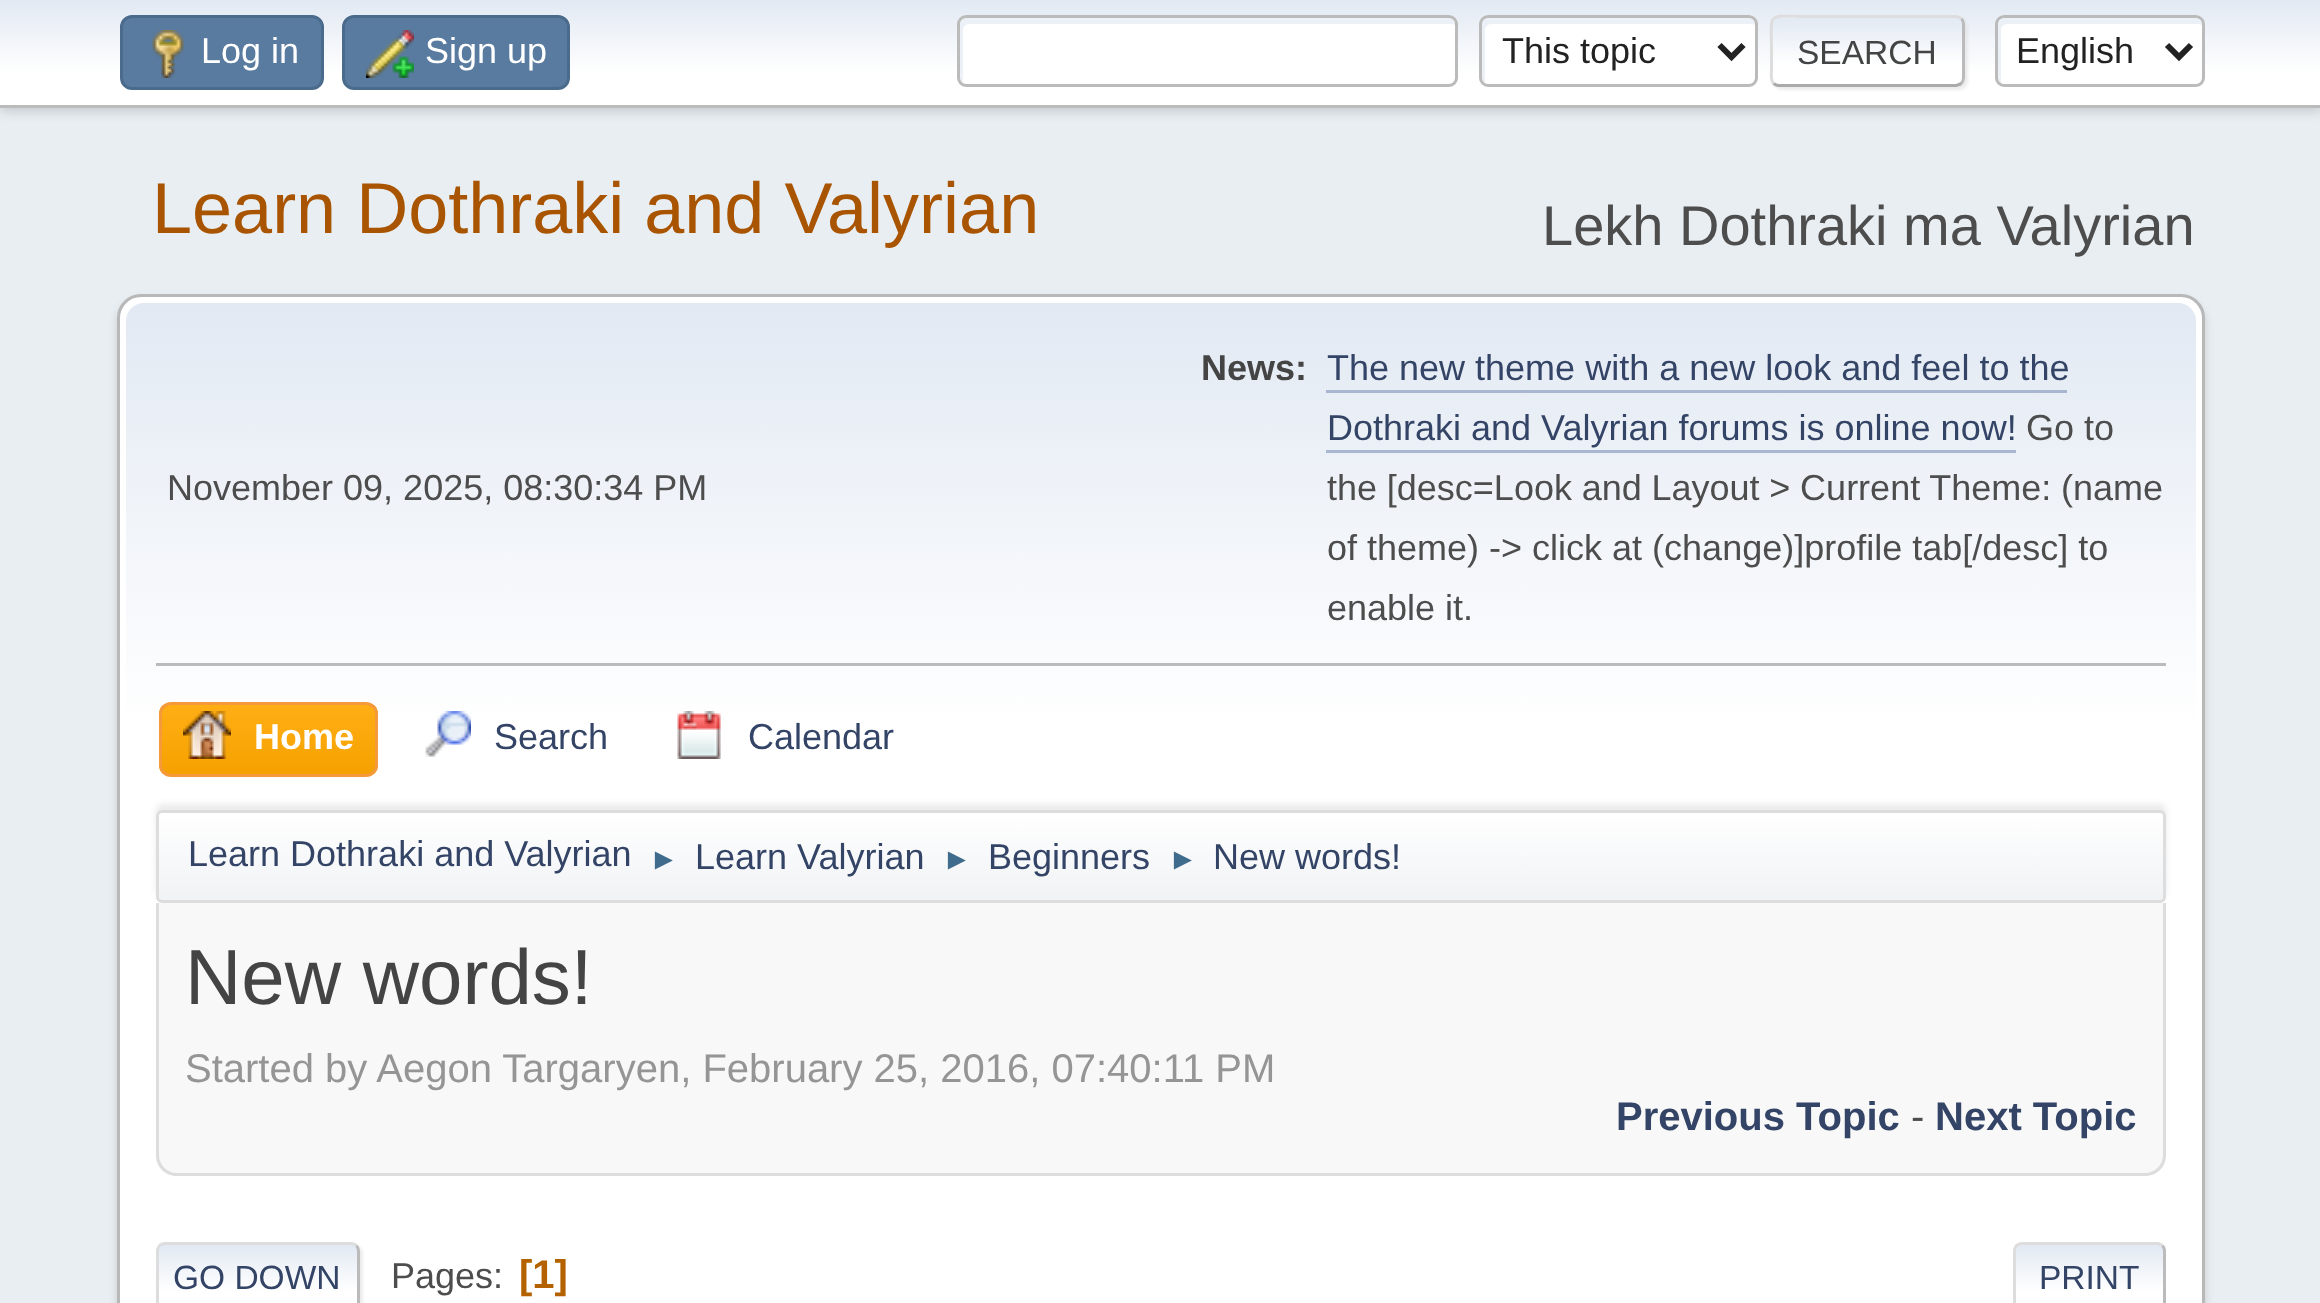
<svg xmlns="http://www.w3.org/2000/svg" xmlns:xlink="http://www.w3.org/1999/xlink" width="2320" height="1303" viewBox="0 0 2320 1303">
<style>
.cls-1{font:36px Liberation Sans;fill:#ffffff}
.cls-2{font:36px Liberation Sans;fill:#222222}
.cls-3{font:33.5px Liberation Sans;fill:#444444}
.cls-4{font:72px Liberation Sans;fill:#a85400}
.cls-5{font:56px Liberation Sans;fill:#4d4d4d}
.cls-6{font:36px Liberation Sans;fill:#4d4d4d}
.cls-7{font:bold 36px Liberation Sans;fill:#444444}
.cls-8{font:36px Liberation Sans;fill:#334466}
.cls-9{font:bold 36px Liberation Sans;fill:#ffffff}
.cls-10{font:30px Liberation Sans;fill:#3f6b8c}
.cls-11{font:78px Liberation Sans;fill:#444444}
.cls-12{font:40px Liberation Sans;fill:#959595}
.cls-13{font:bold 40px Liberation Sans;fill:#334466}
.cls-14{font:40px Liberation Sans;fill:#4d4d4d}
.cls-15{font:33.5px Liberation Sans;fill:#334466}
.cls-16{font:bold 40px Liberation Sans;fill:#b46100}
</style>
<defs>
<linearGradient id="g1" gradientUnits="userSpaceOnUse" x1="1161" y1="0" x2="1161" y2="105"><stop offset="0" stop-color="#e2e9f3"/><stop offset="0.7" stop-color="#ffffff"/></linearGradient>
<clipPath id="clip1"><rect x="1770" y="15" width="195" height="72" rx="9"/></clipPath>
<linearGradient id="g2" gradientUnits="userSpaceOnUse" x1="1868" y1="-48" x2="1868" y2="18"><stop offset="0" stop-color="#e2e9f3"/><stop offset="0.7" stop-color="#ffffff"/></linearGradient>
<linearGradient id="g3" gradientUnits="userSpaceOnUse" x1="1868" y1="18" x2="1868" y2="84"><stop offset="0" stop-color="#e2e9f3"/><stop offset="0.7" stop-color="#ffffff"/></linearGradient>
<linearGradient id="g4" gradientUnits="userSpaceOnUse" x1="1868" y1="84" x2="1868" y2="150"><stop offset="0" stop-color="#e2e9f3"/><stop offset="0.7" stop-color="#ffffff"/></linearGradient>
<linearGradient id="g5" gradientUnits="userSpaceOnUse" x1="1161" y1="303" x2="1161" y2="909"><stop offset="0" stop-color="#e2e9f3"/><stop offset="0.7" stop-color="#ffffff"/></linearGradient>
<clipPath id="clip2"><rect x="159" y="702" width="219" height="75" rx="12"/></clipPath>
<linearGradient id="g6" gradientUnits="userSpaceOnUse" x1="269" y1="705" x2="269" y2="774"><stop offset="0" stop-color="#ffae14"/><stop offset="1" stop-color="#f5a100"/></linearGradient>
<clipPath id="clip3"><rect x="156" y="810" width="2010" height="93" rx="6"/></clipPath>
<linearGradient id="g7" gradientUnits="userSpaceOnUse" x1="1161" y1="813" x2="1161" y2="900"><stop offset="0" stop-color="#ffffff"/><stop offset="0.95" stop-color="#f1f3f5"/></linearGradient>
<clipPath id="clip4"><rect x="156" y="1242" width="204" height="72" rx="9"/></clipPath>
<linearGradient id="g8" gradientUnits="userSpaceOnUse" x1="258" y1="1245" x2="258" y2="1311"><stop offset="0" stop-color="#e2e9f3"/><stop offset="0.7" stop-color="#ffffff"/></linearGradient>
<clipPath id="clip5"><rect x="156" y="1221" width="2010" height="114"/></clipPath>
<clipPath id="clip6"><rect x="2013" y="1242" width="153" height="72" rx="9"/></clipPath>
<linearGradient id="g9" gradientUnits="userSpaceOnUse" x1="2090" y1="1245" x2="2090" y2="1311"><stop offset="0" stop-color="#e2e9f3"/><stop offset="0.7" stop-color="#ffffff"/></linearGradient>
</defs>
<rect width="100%" height="100%" fill="#e9eef2"/>
<rect fill="#000000" fill-opacity="0.16" filter="blur(6px)" x="0" y="3" width="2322" height="108"/>
<rect fill="url(#g1)" x="0" y="0" width="2320" height="105"/>
<rect fill="#bbbbbb" x="0" y="105" width="2320" height="3"/>
<rect fill="#597b9f" stroke="#4a6b8c" stroke-width="3" x="121.5" y="16.5" width="201" height="72" rx="10.5"/>
<image xlink:href="image0.png" x="152" y="30" width="32" height="48"/>
<rect fill="#597b9f" stroke="#4a6b8c" stroke-width="3" x="343.5" y="16.5" width="225" height="72" rx="10.5"/>
<image xlink:href="image1.png" x="366" y="30" width="48" height="48"/>
<rect fill="#ffffff" x="957" y="15" width="501" height="72" rx="9"/>
<path fill="#ecf1f8" d="M969 24H1452L1455 25V24C1455 21 1452 18 1449 18H966C963 18 960 21 960 24V78C960 80 961 82 963 83V30C963 27 966 24 969 24Z"/>
<rect fill="none" stroke="#bbbbbb" stroke-width="3" x="958.5" y="16.5" width="498" height="69" rx="7.5"/>
<rect fill="#ffffff" x="1479" y="15" width="279" height="72" rx="9"/>
<path fill="#ecf1f8" d="M1491 24H1752L1755 25V24C1755 21 1752 18 1749 18H1488C1485 18 1482 21 1482 24V78C1482 80 1483 82 1485 83V30C1485 27 1488 24 1491 24Z"/>
<rect fill="none" stroke="#bbbbbb" stroke-width="3" x="1480.5" y="16.5" width="276" height="69" rx="7.5"/>
<path fill="none" stroke="#222222" stroke-width="6" d="M1719.5 45L1731.5 57L1743.5 45"/>
<rect fill="#dddddd" fill-opacity="0.57" filter="blur(1.5px)" x="1773" y="18" width="195" height="72" rx="9"/>
<g clip-path="url(#clip1)">
<rect fill="url(#g2)" x="1770" y="15" width="195" height="3"/>
<rect fill="url(#g3)" x="1770" y="18" width="195" height="66"/>
<rect fill="url(#g4)" x="1770" y="84" width="195" height="3"/>
</g>
<path fill="none" stroke="#bbbbbb" stroke-width="3" d="M1961.5 18.5C1962.5 20 1963.5 22 1963.5 24V78C1963.5 80 1962.5 82 1961.5 83.5"/>
<path fill="none" stroke="#aaaaaa" stroke-width="3" d="M1961.5 83.5L1956.5 85.5H1778.5C1776.5 85.5 1775 84.5 1773.5 83.5"/>
<path fill="none" stroke="#dddddd" stroke-width="3" d="M1773.5 83.5C1770 79.5 1771.5 73 1771.5 69V51C1771.5 10 1765.5 16.5 1808.5 16.5H1956C1958 16.5 1960 17.5 1961.5 18.5"/>
<rect fill="#ffffff" x="1995" y="15" width="210" height="72" rx="9"/>
<path fill="#ecf1f8" d="M2007 24H2199L2202 25V24C2202 21 2199 18 2196 18H2004C2001 18 1998 21 1998 24V78C1998 80 1999 82 2001 83V30C2001 27 2004 24 2007 24Z"/>
<rect fill="none" stroke="#bbbbbb" stroke-width="3" x="1996.5" y="16.5" width="207" height="69" rx="7.5"/>
<path fill="none" stroke="#222222" stroke-width="6" d="M2167 45L2179 57L2191 45"/>
<rect fill="#000000" fill-opacity="0.14" filter="blur(4.5px)" x="117" y="300" width="2088" height="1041" rx="24"/>
<rect fill="#ffffff" stroke="#b8b8b8" stroke-width="3" x="118.5" y="295.5" width="2085" height="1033" rx="22.5"/>
<path fill="url(#g5)" d="M144 303H2178C2188 303 2196 311 2196 321V909H126V321C126 311 134 303 144 303Z"/>
<rect fill="#bbbbbb" x="156" y="663" width="2010" height="3"/>
<rect fill="#a8b6cf" x="1326" y="390" width="741" height="3"/>
<rect fill="#a8b6cf" x="1326" y="450" width="690" height="3"/>
<g clip-path="url(#clip2)">
<rect fill="url(#g6)" x="159" y="705" width="219" height="69"/>
</g>
<rect fill="none" stroke="#f49a3a" stroke-width="3" x="160.5" y="703.5" width="216" height="72" rx="10.5"/>
<image xlink:href="image2.png" x="183" y="711" width="48" height="48"/>
<image xlink:href="image3.png" x="425" y="711" width="46" height="46"/>
<image xlink:href="image4.png" x="677" y="711" width="44" height="48"/>
<rect fill="#000000" fill-opacity="0.08" filter="blur(3px)" x="156" y="804" width="2010" height="93" rx="6"/>
<g clip-path="url(#clip3)">
<rect fill="url(#g7)" x="156" y="813" width="2010" height="87"/>
</g>
<rect fill="none" stroke="#dddddd" stroke-width="3" x="157.5" y="811.5" width="2007" height="90" rx="4.5"/>
<path fill="#f8f8f8" d="M156 903H2166V1155C2166 1166.5 2156.5 1176 2145 1176H177C165.5 1176 156 1166.5 156 1155Z"/>
<path fill="#dddddd" fill-rule="evenodd" d="M156 903H2166V1155C2166 1167 2157 1176 2145 1176H177C165 1176 156 1167 156 1155ZM159 903H2163V1155C2163 1165 2155 1173 2145 1173H177C167 1173 159 1165 159 1155Z"/>
<rect fill="#dddddd" fill-opacity="0.57" filter="blur(1.5px)" x="159" y="1245" width="204" height="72" rx="9"/>
<g clip-path="url(#clip4)">
<rect fill="url(#g8)" x="156" y="1245" width="204" height="58"/>
</g>
<path fill="none" stroke="#bbbbbb" stroke-width="3" d="M356.5 1245.5C357.5 1247 358.5 1249 358.5 1251V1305C358.5 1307 357.5 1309 356.5 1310.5"/>
<path fill="none" stroke="#dddddd" stroke-width="3" d="M159.5 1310.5C158.5 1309 157.5 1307 157.5 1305V1251C157.5 1249 158.5 1247 159.5 1245.5C161 1244.5 163 1243.5 165 1243.5H351C353 1243.5 355 1244.5 356.5 1245.5"/>
<g clip-path="url(#clip5)">
<rect fill="#dddddd" fill-opacity="0.57" filter="blur(1.5px)" x="2016" y="1245" width="153" height="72" rx="9"/>
</g>
<g clip-path="url(#clip6)">
<rect fill="url(#g9)" x="2013" y="1245" width="153" height="58"/>
</g>
<path fill="none" stroke="#bbbbbb" stroke-width="3" d="M2162.5 1245.5C2163.5 1247 2164.5 1249 2164.5 1251V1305C2164.5 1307 2163.5 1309 2162.5 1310.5"/>
<path fill="none" stroke="#dddddd" stroke-width="3" d="M2016.5 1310.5C2015.5 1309 2014.5 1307 2014.5 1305V1251C2014.5 1249 2015.5 1247 2016.5 1245.5C2018 1244.5 2020 1243.5 2022 1243.5H2157C2159 1243.5 2161 1244.5 2162.5 1245.5"/>
<text class="cls-1" x="201" y="63">Log in</text>
<text class="cls-1" x="425" y="63">Sign up</text>
<text class="cls-2" x="1502" y="63">This topic</text>
<text class="cls-3" x="1797" y="64">SEARCH</text>
<text class="cls-2" x="2016" y="63">English</text>
<text class="cls-4" x="152" y="233">Learn Dothraki and Valyrian</text>
<text class="cls-5" x="1542" y="245">Lekh Dothraki ma Valyrian</text>
<text class="cls-6" x="167" y="500">November 09, 2025, 08:30:34 PM</text>
<text class="cls-7" x="1201" y="380">News:</text>
<text class="cls-8"><tspan x="1327" y="380">The new theme with a new look and feel to the</tspan><tspan x="1327" y="440">Dothraki and Valyrian forums is online now!</tspan></text>
<text class="cls-6" x="2026" y="440">Go to</text>
<text class="cls-6"><tspan x="1327" y="500" word-spacing="-0.25">the [desc=Look and Layout &gt; Current Theme: (name</tspan><tspan x="1327" y="560">of theme) -&gt; click at (change)]profile tab[/desc] to</tspan><tspan x="1327" y="620">enable it.</tspan></text>
<text class="cls-9" x="254" y="749">Home</text>
<text class="cls-8" x="494" y="749">Search</text>
<text class="cls-8" x="748" y="749">Calendar</text>
<text class="cls-8" x="188" y="866">Learn Dothraki and Valyrian</text>
<text class="cls-10" x="649" y="869">►</text>
<text class="cls-8" x="695" y="869">Learn Valyrian</text>
<text class="cls-10" x="942" y="869">►</text>
<text class="cls-8" x="988" y="869">Beginners</text>
<text class="cls-10" x="1168" y="869">►</text>
<text class="cls-8" x="1213" y="869">New words!</text>
<text class="cls-11" x="185" y="1004">New words!</text>
<text class="cls-12" x="185" y="1082">Started by Aegon Targaryen, February 25, 2016, 07:40:11 PM</text>
<text class="cls-13" x="1616" y="1130">Previous Topic</text>
<text class="cls-14" x="1911" y="1130">-</text>
<text class="cls-13" x="1935" y="1130">Next Topic</text>
<text class="cls-15" x="173" y="1289">GO DOWN</text>
<text class="cls-6" x="391" y="1288">Pages:</text>
<text class="cls-16" x="519" y="1288">[1]</text>
<text class="cls-15" x="2039" y="1289">PRINT</text>
</svg>
